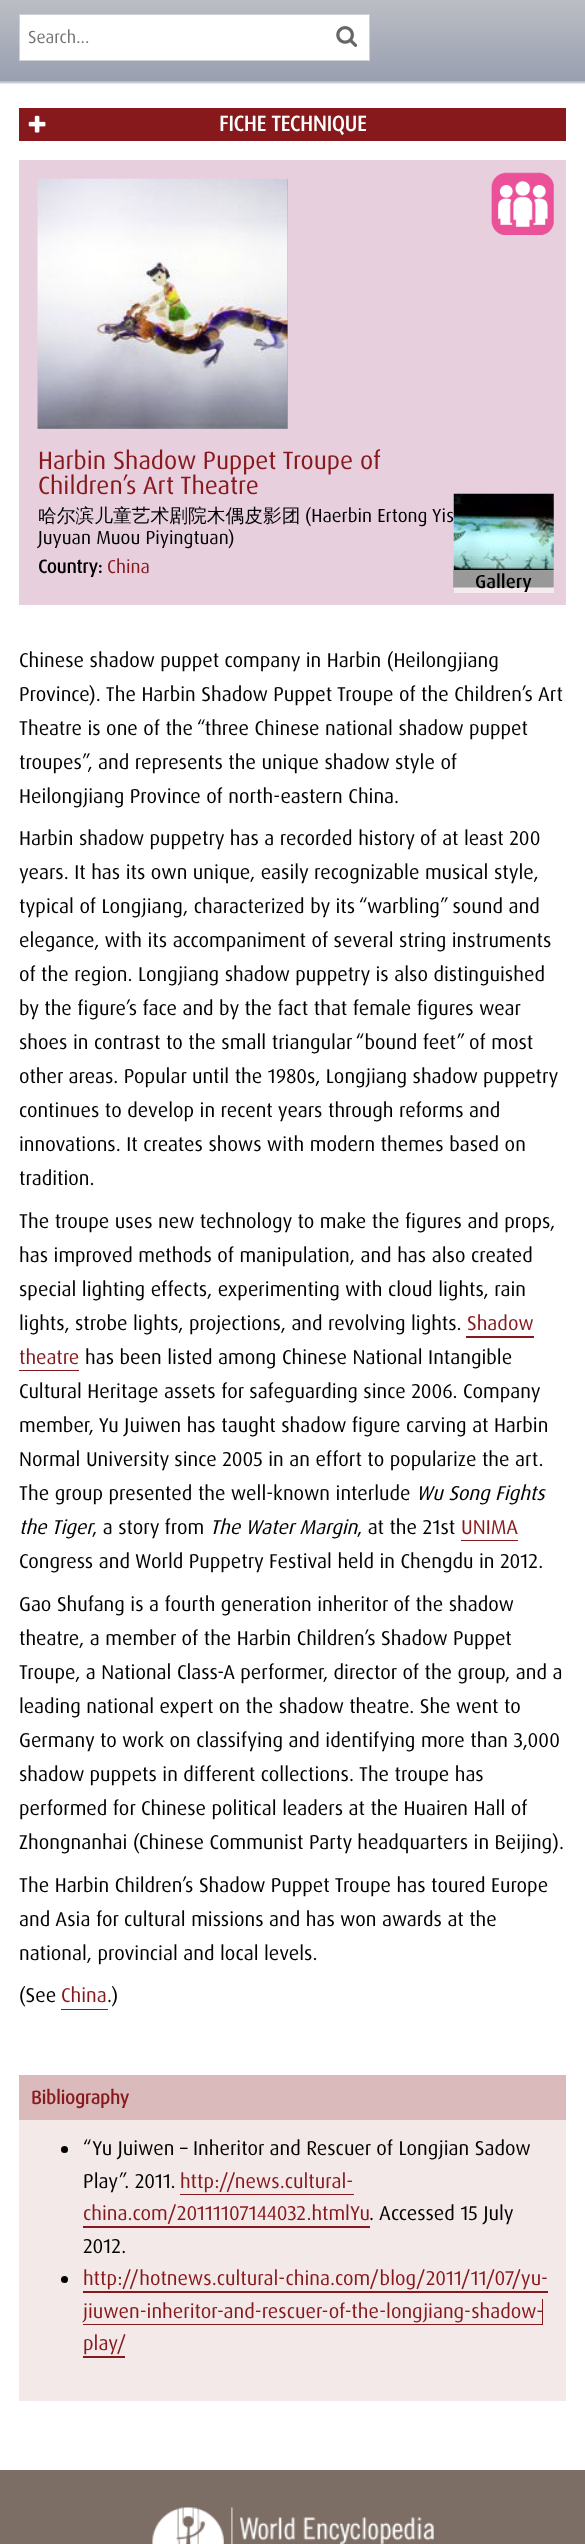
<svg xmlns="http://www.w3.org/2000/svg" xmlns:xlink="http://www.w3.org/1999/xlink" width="585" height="2544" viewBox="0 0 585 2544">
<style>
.cls-1{font:17.5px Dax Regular;fill:#757575}
.cls-2{font:bold 21.25px Dax Regular;fill:#ffffff}
.cls-3{font:25px Dax Regular;fill:#87191d}
.cls-4{font:500 18.75px WenQuanYi Zen Hei;fill:#000000}
.cls-5{font:18.75px Dax Regular;fill:#000000}
.cls-6{font:bold 18.75px Dax Regular;fill:#000000}
.cls-7{font:18.75px Dax Regular;fill:#87191d}
.cls-8{font:500 18.75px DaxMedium;fill:#000000}
.cls-9{font:20px Dax Regular;fill:#000000}
.cls-10{font:20px Dax Regular;fill:#87191d}
.cls-11{font:italic 20px Dax Regular;fill:#000000}
.cls-12{font:bold 18.75px Dax Regular;fill:#87191d}
</style>
<rect width="100%" height="100%" fill="#ffffff"/>
<rect fill="#e6e6e6" x="0" y="82" width="585" height="2"/>
<image xlink:href="image0.png" x="0" y="0" width="585" height="83"/>
<rect fill="#ffffff" stroke="#d1d1d1" x="19.5" y="14.5" width="350" height="46"/>
<image xlink:href="image1.png" x="336" y="26" width="22" height="21"/>
<rect fill="#87191d" x="19" y="108" width="547" height="33"/>
<image xlink:href="image2.png" x="28" y="115" width="18" height="18"/>
<rect fill="#e7cfde" x="19" y="160" width="547" height="445"/>
<rect fill="#aaaaaa" x="38" y="179" width="250" height="250"/>
<image xlink:href="image3.png" x="37" y="178" width="251" height="251"/>
<image xlink:href="image4.png" x="491" y="172" width="63" height="63"/>
<path fill="#87191d" d="M466 1311V1338H534V1311V1336H466Z"/>
<path fill="#87191d" d="M19 1370V1371H79V1345V1370Z"/>
<path fill="#87191d" d="M461 1515V1541H518V1515V1540H461Z"/>
<path fill="#87191d" d="M61 1984V2010H108V1984V2009H61Z"/>
<rect fill="#dbbabb" x="19" y="2075" width="547" height="45"/>
<rect fill="#f4e9e9" x="19" y="2120" width="547" height="281"/>
<circle fill="#000000" cx="64.5" cy="2149.5" r="3.5"/>
<path fill="#87191d" d="M180 2194V2195H354V2169V2194Z"/>
<rect fill="#87191d" x="83" y="2226" width="287" height="2"/>
<circle fill="#000000" cx="64.5" cy="2279.5" r="3.5"/>
<path fill="#87191d" d="M83 2291V2293H548V2266V2291Z"/>
<path fill="#87191d" d="M83 2324V2325H543V2299H542V2324Z"/>
<rect fill="#87191d" x="83" y="2356" width="42" height="2"/>
<rect fill="#7c6e65" x="0" y="2470" width="585" height="74"/>
<image xlink:href="image6.png" x="152" y="2507" width="282" height="37"/>
<text class="cls-1" x="28" y="43">Search...</text>
<text class="cls-2" x="219" y="131">FICHE TECHNIQUE</text>
<text class="cls-3"><tspan x="38" y="469">Harbin Shadow Puppet Troupe of</tspan><tspan x="38" y="494">Children’s Art Theatre</tspan></text>
<text class="cls-4" x="38" y="522">哈尔滨儿童艺术剧院木偶皮影团</text>
<text class="cls-5" x="305" y="522">(Haerbin Ertong Yis</text>
<text class="cls-5" x="38" y="544">Juyuan Muou Piyingtuan)</text>
<text class="cls-6" x="38" y="573">Country:</text>
<text class="cls-7" x="107" y="573">China</text>
<image xlink:href="image5.png" x="453" y="493" width="101" height="95"/>
<rect fill="#ffffff" fill-opacity="0.6" x="454" y="570" width="100" height="23"/>
<text class="cls-8" x="475" y="588">Gallery</text>
<text class="cls-9"><tspan x="19" y="667">Chinese shadow puppet company in Harbin (Heilongjiang</tspan><tspan x="19" y="701">Province). The Harbin Shadow Puppet Troupe of the Children’s Art</tspan><tspan x="19" y="735">Theatre is one of the “three Chinese national shadow puppet</tspan><tspan x="19" y="769">troupes”, and represents the unique shadow style of</tspan><tspan x="19" y="803">Heilongjiang Province of north-eastern China.</tspan></text>
<text class="cls-9"><tspan x="19" y="845">Harbin shadow puppetry has a recorded history of at least 200</tspan><tspan x="19" y="879">years. It has its own unique, easily recognizable musical style,</tspan><tspan x="19" y="913">typical of Longjiang, characterized by its “warbling” sound and</tspan><tspan x="19" y="947">elegance, with its accompaniment of several string instruments</tspan><tspan x="19" y="981">of the region. Longjiang shadow puppetry is also distinguished</tspan><tspan x="19" y="1015">by the figure’s face and by the fact that female figures wear</tspan><tspan x="19" y="1049">shoes in contrast to the small triangular “bound feet” of most</tspan><tspan x="19" y="1083">other areas. Popular until the 1980s, Longjiang shadow puppetry</tspan><tspan x="19" y="1117">continues to develop in recent years through reforms and</tspan><tspan x="19" y="1151">innovations. It creates shows with modern themes based on</tspan><tspan x="19" y="1185">tradition.</tspan></text>
<text class="cls-9"><tspan x="19" y="1228">The troupe uses new technology to make the figures and props,</tspan><tspan x="19" y="1262">has improved methods of manipulation, and has also created</tspan><tspan x="19" y="1296">special lighting effects, experimenting with cloud lights, rain</tspan><tspan x="19" y="1330">lights, strobe lights, projections, and revolving lights.</tspan></text>
<text class="cls-10" x="467" y="1330">Shadow</text>
<text class="cls-10" x="19" y="1364">theatre</text>
<text class="cls-9" x="85" y="1364">has been listed among Chinese National Intangible</text>
<text class="cls-9"><tspan x="19" y="1398">Cultural Heritage assets for safeguarding since 2006. Company</tspan><tspan x="19" y="1432">member, Yu Juiwen has taught shadow figure carving at Harbin</tspan><tspan x="19" y="1466">Normal University since 2005 in an effort to popularize the art.</tspan><tspan x="19" y="1500">The group presented the well-known interlude</tspan></text>
<text class="cls-11" x="416" y="1500">Wu Song Fights</text>
<text class="cls-11" x="19" y="1534">the Tiger</text>
<text class="cls-9" x="92" y="1534">, a story from</text>
<text class="cls-11" x="210" y="1534">The Water Margin</text>
<text class="cls-9" x="357" y="1534">, at the 21st</text>
<text class="cls-10" x="461" y="1534">UNIMA</text>
<text class="cls-9" x="19" y="1568">Congress and World Puppetry Festival held in Chengdu in 2012.</text>
<text class="cls-9"><tspan x="19" y="1611">Gao Shufang is a fourth generation inheritor of the shadow</tspan><tspan x="19" y="1645">theatre, a member of the Harbin Children’s Shadow Puppet</tspan><tspan x="19" y="1679">Troupe, a National Class-A performer, director of the group, and a</tspan><tspan x="19" y="1713">leading national expert on the shadow theatre. She went to</tspan><tspan x="19" y="1747">Germany to work on classifying and identifying more than 3,000</tspan><tspan x="19" y="1781">shadow puppets in different collections. The troupe has</tspan><tspan x="19" y="1815">performed for Chinese political leaders at the Huairen Hall of</tspan><tspan x="19" y="1849">Zhongnanhai (Chinese Communist Party headquarters in Beijing).</tspan></text>
<text class="cls-9"><tspan x="19" y="1892">The Harbin Children’s Shadow Puppet Troupe has toured Europe</tspan><tspan x="19" y="1926">and Asia for cultural missions and has won awards at the</tspan><tspan x="19" y="1960">national, provincial and local levels.</tspan></text>
<text class="cls-9" x="19" y="2002">(See</text>
<text class="cls-10" x="61" y="2002">China</text>
<text class="cls-9" x="107" y="2002">.)</text>
<text class="cls-12" x="31" y="2104">Bibliography</text>
<text class="cls-9"><tspan x="83" y="2155">“Yu Juiwen – Inheritor and Rescuer of Longjian Sadow</tspan><tspan x="83" y="2188">Play”. 2011.</tspan></text>
<text class="cls-10" x="180" y="2188">http://news.cultural-</text>
<text class="cls-10" x="83" y="2220">china.com/20111107144032.htmlYu</text>
<text class="cls-9" x="369" y="2220">. Accessed 15 July</text>
<text class="cls-9" x="83" y="2253">2012.</text>
<text class="cls-10"><tspan x="83" y="2285">http://hotnews.cultural-china.com/blog/2011/11/07/yu-</tspan><tspan x="83" y="2318">jiuwen-inheritor-and-rescuer-of-the-longjiang-shadow-</tspan><tspan x="83" y="2350">play/</tspan></text>
</svg>
